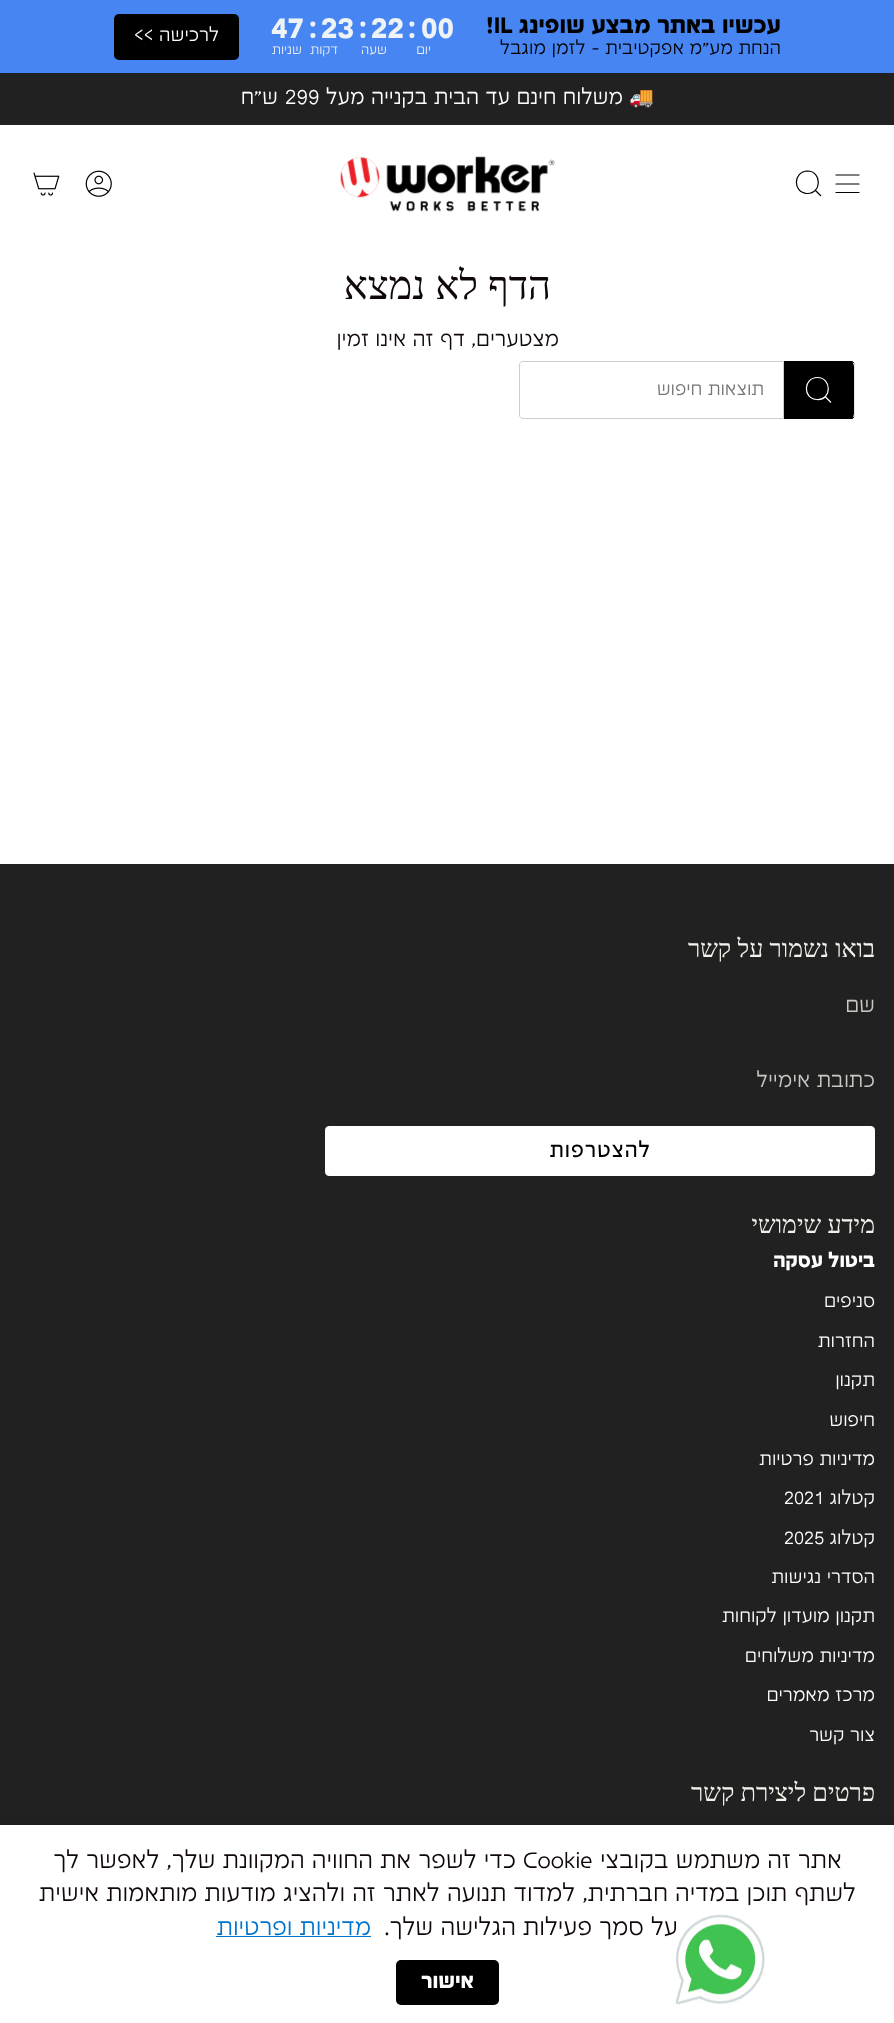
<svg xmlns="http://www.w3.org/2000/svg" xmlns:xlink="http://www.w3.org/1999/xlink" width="894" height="2023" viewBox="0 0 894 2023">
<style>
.cls-1{font:bold 22.5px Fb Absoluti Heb;direction:rtl;fill:#000000}
.cls-2{font:bold 22.5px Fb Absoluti;fill:#000000}
.cls-3{font:bold 22.5px Fb Absoluti Heb;fill:#000000}
.cls-4{font:300 17.5px Fb Absoluti Heb;direction:rtl;fill:#000000}
.cls-5{font:bold 28px Fb Absoluti Heb;fill:#edf3f6}
.cls-6{font:300 12.5px Fb Absoluti Heb;direction:rtl;fill:#eceef0}
.cls-7{font:300 17.5px Fb Absoluti Heb;direction:rtl;fill:#ffffff}
.cls-8{font:20px Noto Color Emoji;direction:rtl;fill:#ffffff}
.cls-9{font:300 20px Fb Absoluti Heb;direction:rtl;fill:#ffffff}
.cls-10{font:300 20px Fb Absoluti Heb;fill:#ffffff}
.cls-11{font:40px Liberation Serif;direction:rtl;fill:#0f0708}
.cls-12{font:300 20px Fb Absoluti Heb;direction:rtl;fill:#0f0708}
.cls-13{font:300 17.5px Fb Absoluti Heb;direction:rtl;fill:#757575}
.cls-14{font:25px Liberation Serif;direction:rtl;fill:#f5f2ec}
.cls-15{font:300 20px Fb Absoluti Heb;direction:rtl;fill:#cbc8c3}
.cls-16{font:20px Fb Absoluti Heb;letter-spacing:1px;direction:rtl;fill:#000000}
.cls-17{font:bold 18.75px Fb Absoluti Heb;direction:rtl;fill:#ffffff}
.cls-18{font:300 17.5px Fb Absoluti Heb;fill:#ffffff}
.cls-19{font:300 22.5px Fb Absoluti Heb;direction:rtl;fill:#0f0708}
.cls-20{font:300 22.5px Fb Absoluti;fill:#0f0708}
.cls-21{font:300 22.5px Fb Absoluti Heb;direction:rtl;fill:#0074cc}
.cls-22{font:bold 20px Fb Absoluti Heb;direction:rtl;fill:#ffffff}
</style>
<rect width="100%" height="100%" fill="#ffffff"/>
<rect fill="#4785f2" x="0" y="0" width="894" height="73"/>
<rect fill="#000000" x="114" y="14" width="125" height="46" rx="5"/>
<rect fill="#212121" x="0" y="73" width="894" height="52"/>
<path fill="none" stroke="#000000" stroke-width="1.2" stroke-linecap="round" stroke-linejoin="round" d="M836 175H859M836 184H859M836 192.5H859"/>
<path fill="none" stroke="#000000" stroke-width="1.2" d="M807.5 171C822 171 822 194 807 193.5C792.5 192.5 793 171.5 807.5 171ZM815 190L821 196"/>
<image xlink:href="image0.png" x="340" y="156" width="215" height="56"/>
<image xlink:href="image1.png" x="85" y="170" width="27" height="27"/>
<image xlink:href="image2.png" x="33" y="172" width="27" height="24"/>
<path fill="#000000" d="M784 361H850C853 361 855 363 855 366V414C855 417 853 419 850 419H784Z"/>
<path fill="#000000" d="M784 362V361H852L854 363H853L850 362Z"/>
<path fill="#e8e8e8" d="M853 417L854 414V366L853 363H854C855 363 855 365 855 366V414C855 415 855 417 854 417Z"/>
<path fill="#000000" d="M852 419H784V418H850L853 417H854Z"/>
<path fill="none" stroke="#ffffff" stroke-width="1.2" d="M817.5 377.5C832 377.5 832 400.5 817 399.5C802.5 399 803 377.5 817.5 377.5ZM825 396.5L831 402.5"/>
<path fill="none" stroke="#d1cdc4" d="M523 361.5H783.5V418.5H523C521 418.5 519.5 417 519.5 415V365C519.5 363 521 361.5 523 361.5Z"/>
<rect fill="#212121" x="0" y="864" width="894" height="961"/>
<rect fill="#ffffff" stroke="#ffffff" x="325.5" y="1126.5" width="549" height="49" rx="3.5"/>
<rect fill="#000000" fill-opacity="0.14" filter="blur(5.5px)" x="0" y="1825" width="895" height="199"/>
<rect fill="#ffffff" x="0" y="1825" width="894" height="198"/>
<rect fill="#0074cc" x="216" y="1936" width="155" height="1"/>
<rect fill="#000000" x="396" y="1960" width="103" height="45" rx="5"/>
<text class="cls-1" x="781" y="33">עכשיו באתר מבצע שופינג</text>
<text class="cls-2" x="494" y="33">IL</text>
<text class="cls-3" x="486" y="33">!</text>
<text class="cls-4" x="781" y="54">הנחת מע"מ אפקטיבית - לזמן מוגבל</text>
<text class="cls-5" x="421" y="38">00</text>
<text class="cls-5" x="407" y="38">:</text>
<text class="cls-5" x="371" y="38">22</text>
<text class="cls-5" x="358" y="38">:</text>
<text class="cls-5" x="321" y="38">23</text>
<text class="cls-5" x="308" y="38">:</text>
<text class="cls-5" x="271" y="38">47</text>
<text class="cls-6" x="431" y="54">יום</text>
<text class="cls-6" x="387" y="54">שעה</text>
<text class="cls-6" x="338" y="54">דקות</text>
<text class="cls-6" x="302" y="54">שניות</text>
<text class="cls-7" x="219" y="41">לרכישה &gt;&gt;</text>
<text class="cls-8" x="654" y="104">🚚</text>
<text class="cls-9" x="623" y="104">משלוח חינם עד הבית בקנייה מעל</text>
<text class="cls-10" x="285" y="104">299</text>
<text class="cls-9" x="278" y="104">ש״ח</text>
<text class="cls-11" x="551" y="299">הדף לא נמצא</text>
<text class="cls-12" x="559" y="346">מצטערים, דף זה אינו זמין</text>
<text class="cls-13" x="764" y="395">תוצאות חיפוש</text>
<text class="cls-14" x="875" y="957">בואו נשמור על קשר</text>
<text class="cls-15" x="875" y="1012">שם</text>
<text class="cls-15" x="875" y="1087">כתובת אימייל</text>
<text class="cls-16" x="651" y="1157">להצטרפות</text>
<text class="cls-14" x="875" y="1233">מידע שימושי</text>
<text class="cls-17" x="875" y="1267">ביטול עסקה</text>
<text class="cls-7" x="875" y="1307">סניפים</text>
<text class="cls-7" x="875" y="1347">החזרות</text>
<text class="cls-7" x="875" y="1386">תקנון</text>
<text class="cls-7" x="875" y="1426">חיפוש</text>
<text class="cls-7" x="875" y="1465">מדיניות פרטיות</text>
<text class="cls-7" x="875" y="1504">קטלוג</text>
<text class="cls-18" x="784" y="1504">2021</text>
<text class="cls-7" x="875" y="1544">קטלוג</text>
<text class="cls-18" x="784" y="1544">2025</text>
<text class="cls-7" x="875" y="1583">הסדרי נגישות</text>
<text class="cls-7" x="875" y="1622">תקנון מועדון לקוחות</text>
<text class="cls-7" x="875" y="1662">מדיניות משלוחים</text>
<text class="cls-7" x="875" y="1701">מרכז מאמרים</text>
<text class="cls-7" x="875" y="1741">צור קשר</text>
<text class="cls-14" x="875" y="1801">פרטים ליצירת קשר</text>
<text class="cls-19" x="842" y="1868">אתר זה משתמש בקובצי</text>
<text class="cls-20" x="523" y="1868">Cookie</text>
<text class="cls-19" x="516" y="1868">כדי לשפר את החוויה המקוונת שלך, לאפשר לך</text>
<text class="cls-19" x="856" y="1901">לשתף תוכן במדיה חברתית, למדוד תנועה לאתר זה ולהציג מודעות מותאמות אישית</text>
<text class="cls-19" x="678" y="1935">על סמך פעילות הגלישה שלך.</text>
<text class="cls-21" x="371" y="1935">מדיניות ופרטיות</text>
<text class="cls-22" x="474" y="1988">אישור</text>
<image xlink:href="image3.png" x="675" y="1914" width="90" height="91"/>
</svg>
